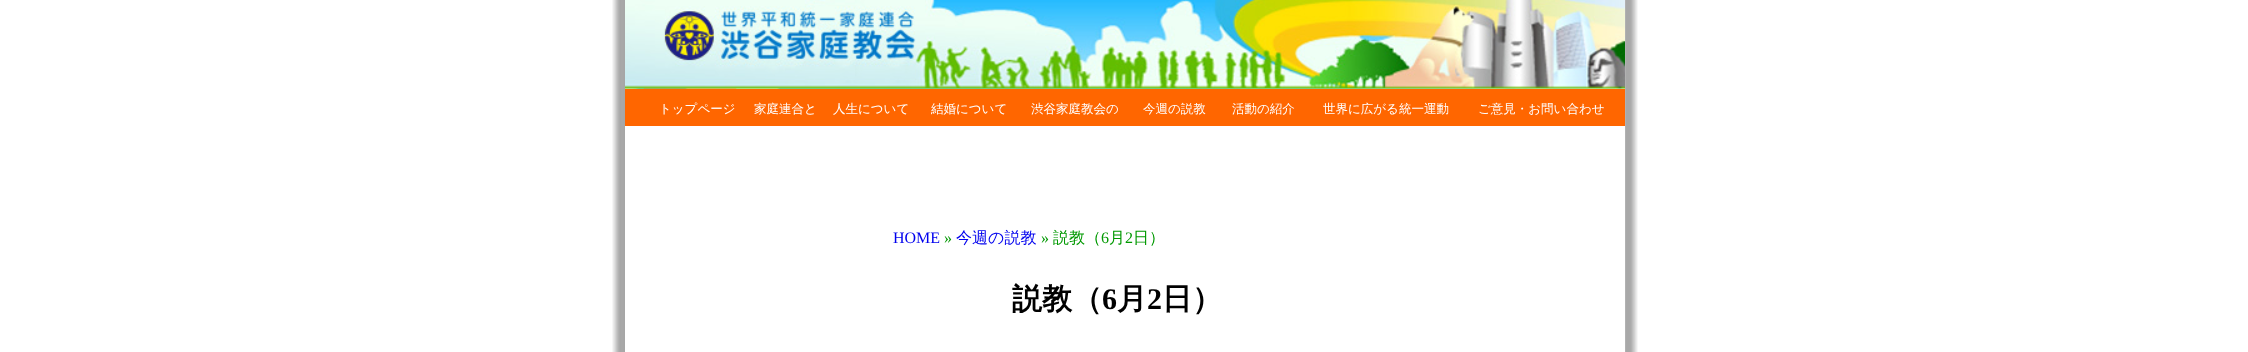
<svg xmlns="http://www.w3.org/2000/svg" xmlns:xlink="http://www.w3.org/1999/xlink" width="2248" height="352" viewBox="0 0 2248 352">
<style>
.cls-1{font:500 12.5px WenQuanYi Zen Hei;fill:#ffffff}
.cls-2{font:16px Liberation Serif;fill:#0000ee}
.cls-3{font:16px Liberation Serif;fill:#009900}
.cls-4{font:500 16px WenQuanYi Zen Hei;fill:#0000ee}
.cls-5{font:500 16px WenQuanYi Zen Hei;fill:#009900}
.cls-6{font:bold 30px WenQuanYi Zen Hei;fill:#000000}
.cls-7{font:bold 30px Liberation Serif;fill:#000000}
</style>
<rect width="100%" height="100%" fill="#ffffff"/>
<image xlink:href="image0.png" x="612" y="0" width="1026" height="352"/>
<rect fill="#ffffff" x="625" y="88" width="1000" height="264"/>
<image xlink:href="image1.png" x="625" y="0" width="1000" height="89"/>
<rect fill="#ff6600" x="625" y="89" width="1000" height="37"/>
<image xlink:href="image2.png" x="643" y="88" width="94" height="1"/>
<text class="cls-1" x="659" y="113">トップページ</text>
<text class="cls-1" x="754" y="113">家庭連合と</text>
<text class="cls-1" x="833" y="113">人生について</text>
<text class="cls-1" x="931" y="113">結婚について</text>
<text class="cls-1" x="1031" y="113">渋谷家庭教会の</text>
<text class="cls-1" x="1143" y="113">今週の説教</text>
<text class="cls-1" x="1232" y="113">活動の紹介</text>
<text class="cls-1" x="1323" y="113">世界に広がる統一運動</text>
<text class="cls-1" x="1478" y="113">ご意見・お問い合わせ</text>
<text class="cls-2" x="893" y="243">HOME</text>
<text class="cls-3" x="944" y="243">»</text>
<text class="cls-4" x="956" y="243">今週の説教</text>
<text class="cls-3" x="1041" y="243">»</text>
<text class="cls-5" x="1053" y="243">説教（</text>
<text class="cls-3" x="1101" y="243">6</text>
<text class="cls-5" x="1109" y="243">月</text>
<text class="cls-3" x="1125" y="243">2</text>
<text class="cls-5" x="1133" y="243">日）</text>
<text class="cls-6" x="1012" y="309">説教（</text>
<text class="cls-7" x="1102" y="309">6</text>
<text class="cls-6" x="1117" y="309">月</text>
<text class="cls-7" x="1147" y="309">2</text>
<text class="cls-6" x="1162" y="309">日）</text>
</svg>
